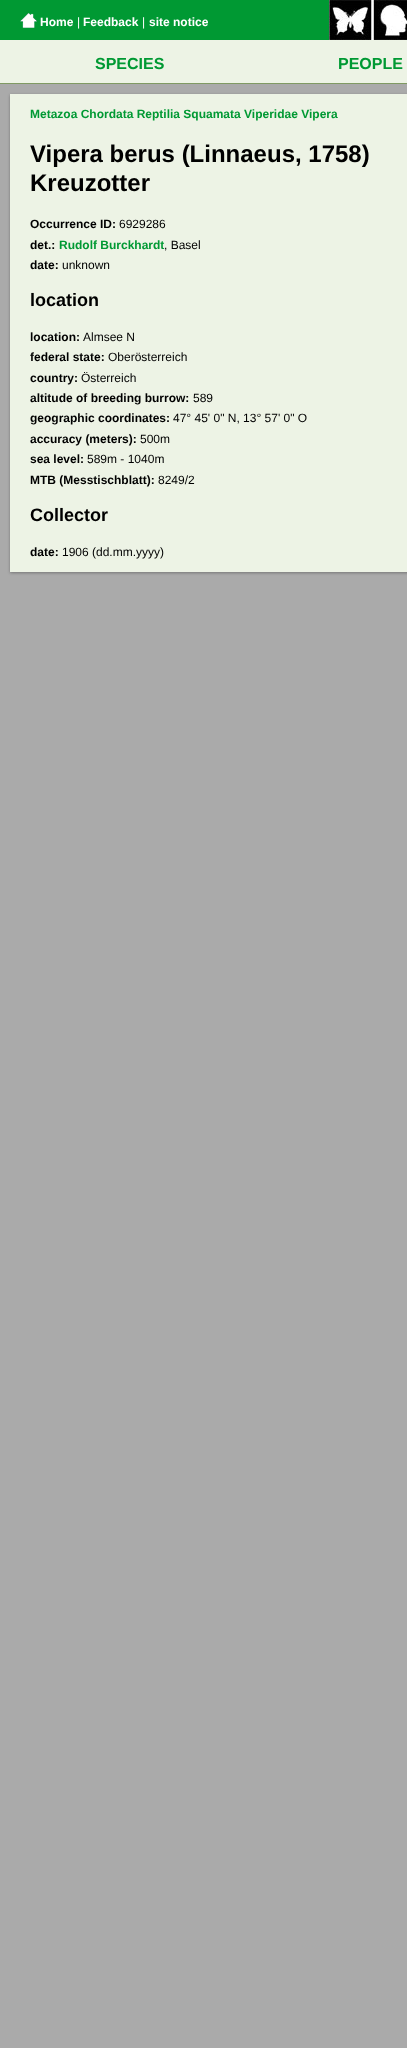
<svg xmlns="http://www.w3.org/2000/svg" xmlns:xlink="http://www.w3.org/1999/xlink" width="407" height="2048" viewBox="0 0 407 2048">
<style>
.cls-1{font:bold 12px Liberation Sans;fill:#ffffff}
.cls-2{font:12px Liberation Sans;fill:#ffffff}
.cls-3{font:bold 16px Liberation Sans;fill:#009933}
.cls-4{font:bold 12px Liberation Sans;fill:#009933}
.cls-5{font:bold 24px Liberation Sans;fill:#000000}
.cls-6{font:bold 12px Liberation Sans;fill:#000000}
.cls-7{font:12px Liberation Sans;fill:#000000}
.cls-8{font:bold 18px Liberation Sans;fill:#000000}
</style>
<rect width="100%" height="100%" fill="#aaaaaa"/>
<rect fill="#009933" x="0" y="0" width="329" height="40"/>
<image xlink:href="image0.png" x="20" y="13" width="17" height="15"/>
<image xlink:href="image1.png" x="329" y="0" width="78" height="40"/>
<rect fill="#edf3e5" x="0" y="40" width="407" height="43"/>
<rect fill="#809a63" x="0" y="83" width="407" height="1"/>
<rect fill="#000000" fill-opacity="0.3" filter="blur(1.5px)" x="10" y="95" width="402" height="478"/>
<rect fill="#edf3e5" x="10" y="94" width="397" height="478"/>
<text class="cls-1" x="40" y="26">Home</text>
<text class="cls-2" x="77" y="26">|</text>
<text class="cls-1" x="83" y="26">Feedback</text>
<text class="cls-2" x="142" y="26">|</text>
<text class="cls-1" x="149" y="26">site notice</text>
<text class="cls-3" x="95" y="69">SPECIES</text>
<text class="cls-3" x="338" y="69">PEOPLE</text>
<text class="cls-4" x="30" y="118">Metazoa Chordata Reptilia Squamata Viperidae Vipera</text>
<text class="cls-5"><tspan x="30" y="162">Vipera berus (Linnaeus, 1758)</tspan><tspan x="30" y="191">Kreuzotter</tspan></text>
<text class="cls-6" x="30" y="228">Occurrence ID:</text>
<text class="cls-7" x="119" y="228">6929286</text>
<text class="cls-6" x="30" y="249">det.:</text>
<text class="cls-4" x="59" y="249">Rudolf Burckhardt</text>
<text class="cls-7" x="164" y="249">, Basel</text>
<text class="cls-6" x="30" y="269">date:</text>
<text class="cls-7" x="62" y="269">unknown</text>
<text class="cls-8" x="30" y="306">location</text>
<text class="cls-6" x="30" y="341">location:</text>
<text class="cls-7" x="83" y="341">Almsee N</text>
<text class="cls-6" x="30" y="361">federal state:</text>
<text class="cls-7" x="108" y="361">Oberösterreich</text>
<text class="cls-6" x="30" y="382">country:</text>
<text class="cls-7" x="81" y="382">Österreich</text>
<text class="cls-6" x="30" y="402">altitude of breeding burrow:</text>
<text class="cls-7" x="193" y="402">589</text>
<text class="cls-6" x="30" y="422">geographic coordinates:</text>
<text class="cls-7" x="173" y="422">47° 45' 0" N, 13° 57' 0" O</text>
<text class="cls-6" x="30" y="443">accuracy (meters):</text>
<text class="cls-7" x="140" y="443">500m</text>
<text class="cls-6" x="30" y="463">sea level:</text>
<text class="cls-7" x="87" y="463">589m - 1040m</text>
<text class="cls-6" x="30" y="484">MTB (Messtischblatt):</text>
<text class="cls-7" x="158" y="484">8249/2</text>
<text class="cls-8" x="30" y="521">Collector</text>
<text class="cls-6" x="30" y="556">date:</text>
<text class="cls-7" x="62" y="556">1906 (dd.mm.yyyy)</text>
</svg>
